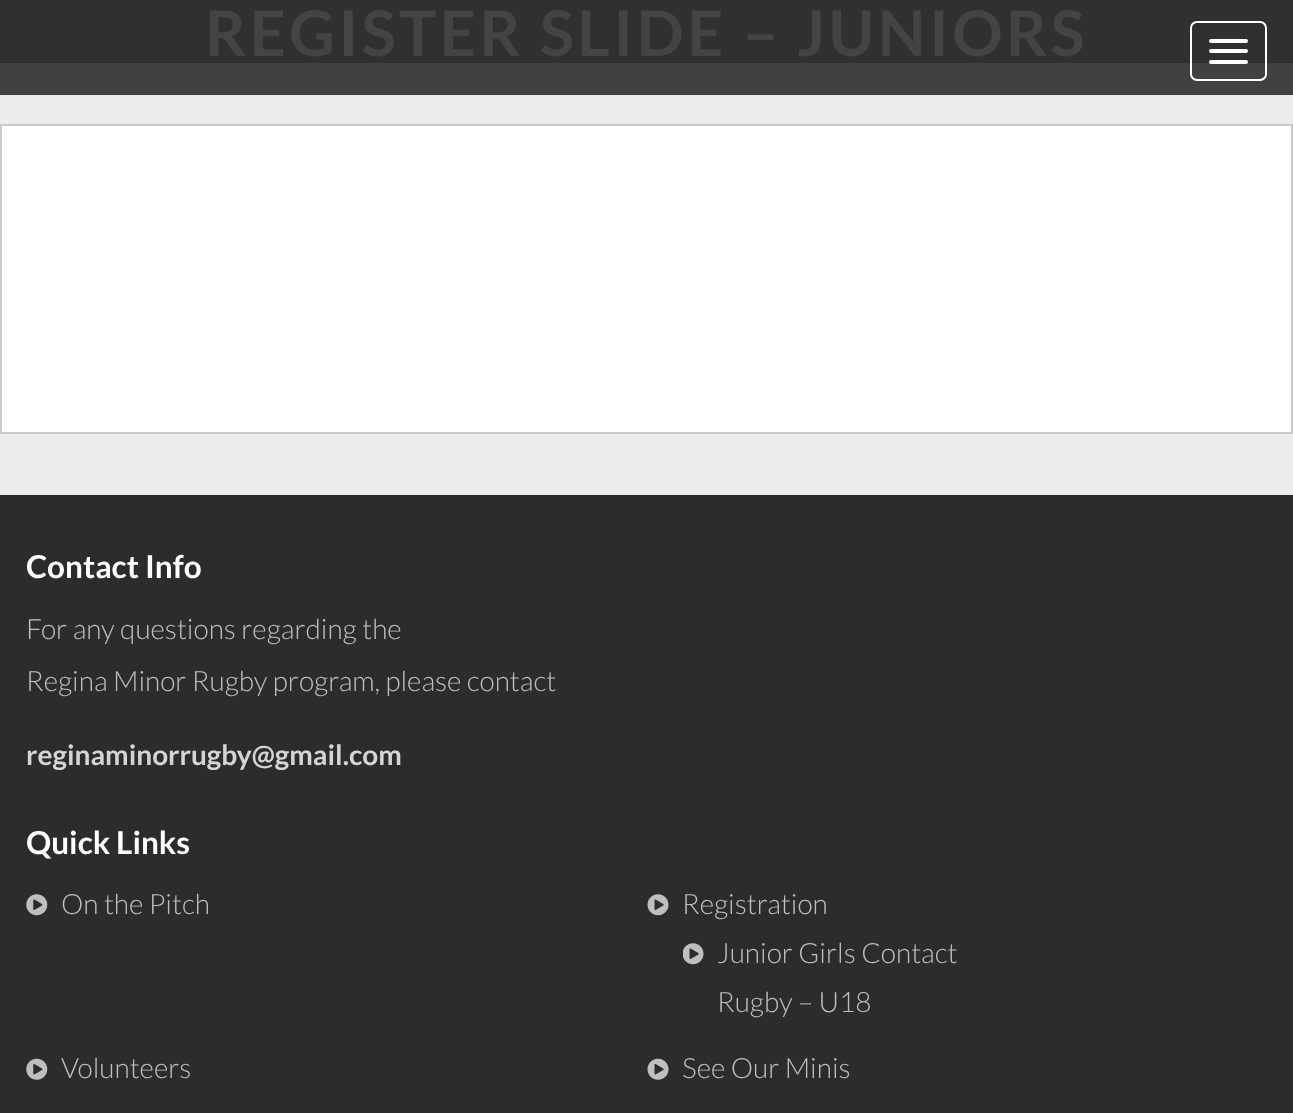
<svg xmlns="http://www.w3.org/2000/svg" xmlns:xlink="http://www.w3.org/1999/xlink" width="1293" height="1113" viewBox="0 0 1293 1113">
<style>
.cls-1{font:bold 63px Lato;letter-spacing:3.5px;fill:#454445}
.cls-2{font:bold 31.5px Lato;fill:#ffffff}
.cls-3{font:300 28px Lato;fill:#c0bfc0}
.cls-4{font:bold 28px Lato;fill:#d5d5d5}
</style>
<rect width="100%" height="100%" fill="#eeedec"/>
<rect fill="#424041" x="0" y="63" width="1293" height="32"/>
<rect fill="#313030" x="0" y="0" width="1293" height="63"/>
<rect fill="none" stroke="#ffffff" stroke-width="2" x="1191" y="22" width="75" height="58" rx="6"/>
<rect fill="#ffffff" x="1209" y="39" width="39" height="4" rx="2"/>
<rect fill="#ffffff" x="1209" y="49" width="39" height="4" rx="2"/>
<rect fill="#ffffff" x="1209" y="60" width="39" height="4" rx="2"/>
<rect fill="#ffffff" stroke="#cacaca" stroke-width="2" x="1" y="125" width="1291" height="308"/>
<rect fill="#2d2b2c" x="0" y="495" width="1293" height="618"/>
<image xlink:href="image0.png" x="26" y="894" width="22" height="22"/>
<image xlink:href="image1.png" x="647" y="894" width="22" height="22"/>
<image xlink:href="image2.png" x="683" y="943" width="21" height="22"/>
<image xlink:href="image3.png" x="26" y="1058" width="22" height="22"/>
<image xlink:href="image4.png" x="647" y="1058" width="22" height="22"/>
<text class="cls-1" x="205" y="56">REGISTER SLIDE – JUNIORS</text>
<text class="cls-2" x="26" y="578">Contact Info</text>
<text class="cls-3"><tspan x="26" y="639">For any questions regarding the</tspan><tspan x="26" y="691">Regina Minor Rugby program, please contact</tspan></text>
<text class="cls-4" x="26" y="765">reginaminorrugby@gmail.com</text>
<text class="cls-2" x="26" y="854">Quick Links</text>
<text class="cls-3" x="61" y="914">On the Pitch</text>
<text class="cls-3" x="682" y="914">Registration</text>
<text class="cls-3"><tspan x="717" y="963">Junior Girls Contact</tspan><tspan x="717" y="1012">Rugby – U18</tspan></text>
<text class="cls-3" x="61" y="1078">Volunteers</text>
<text class="cls-3" x="682" y="1078">See Our Minis</text>
</svg>
